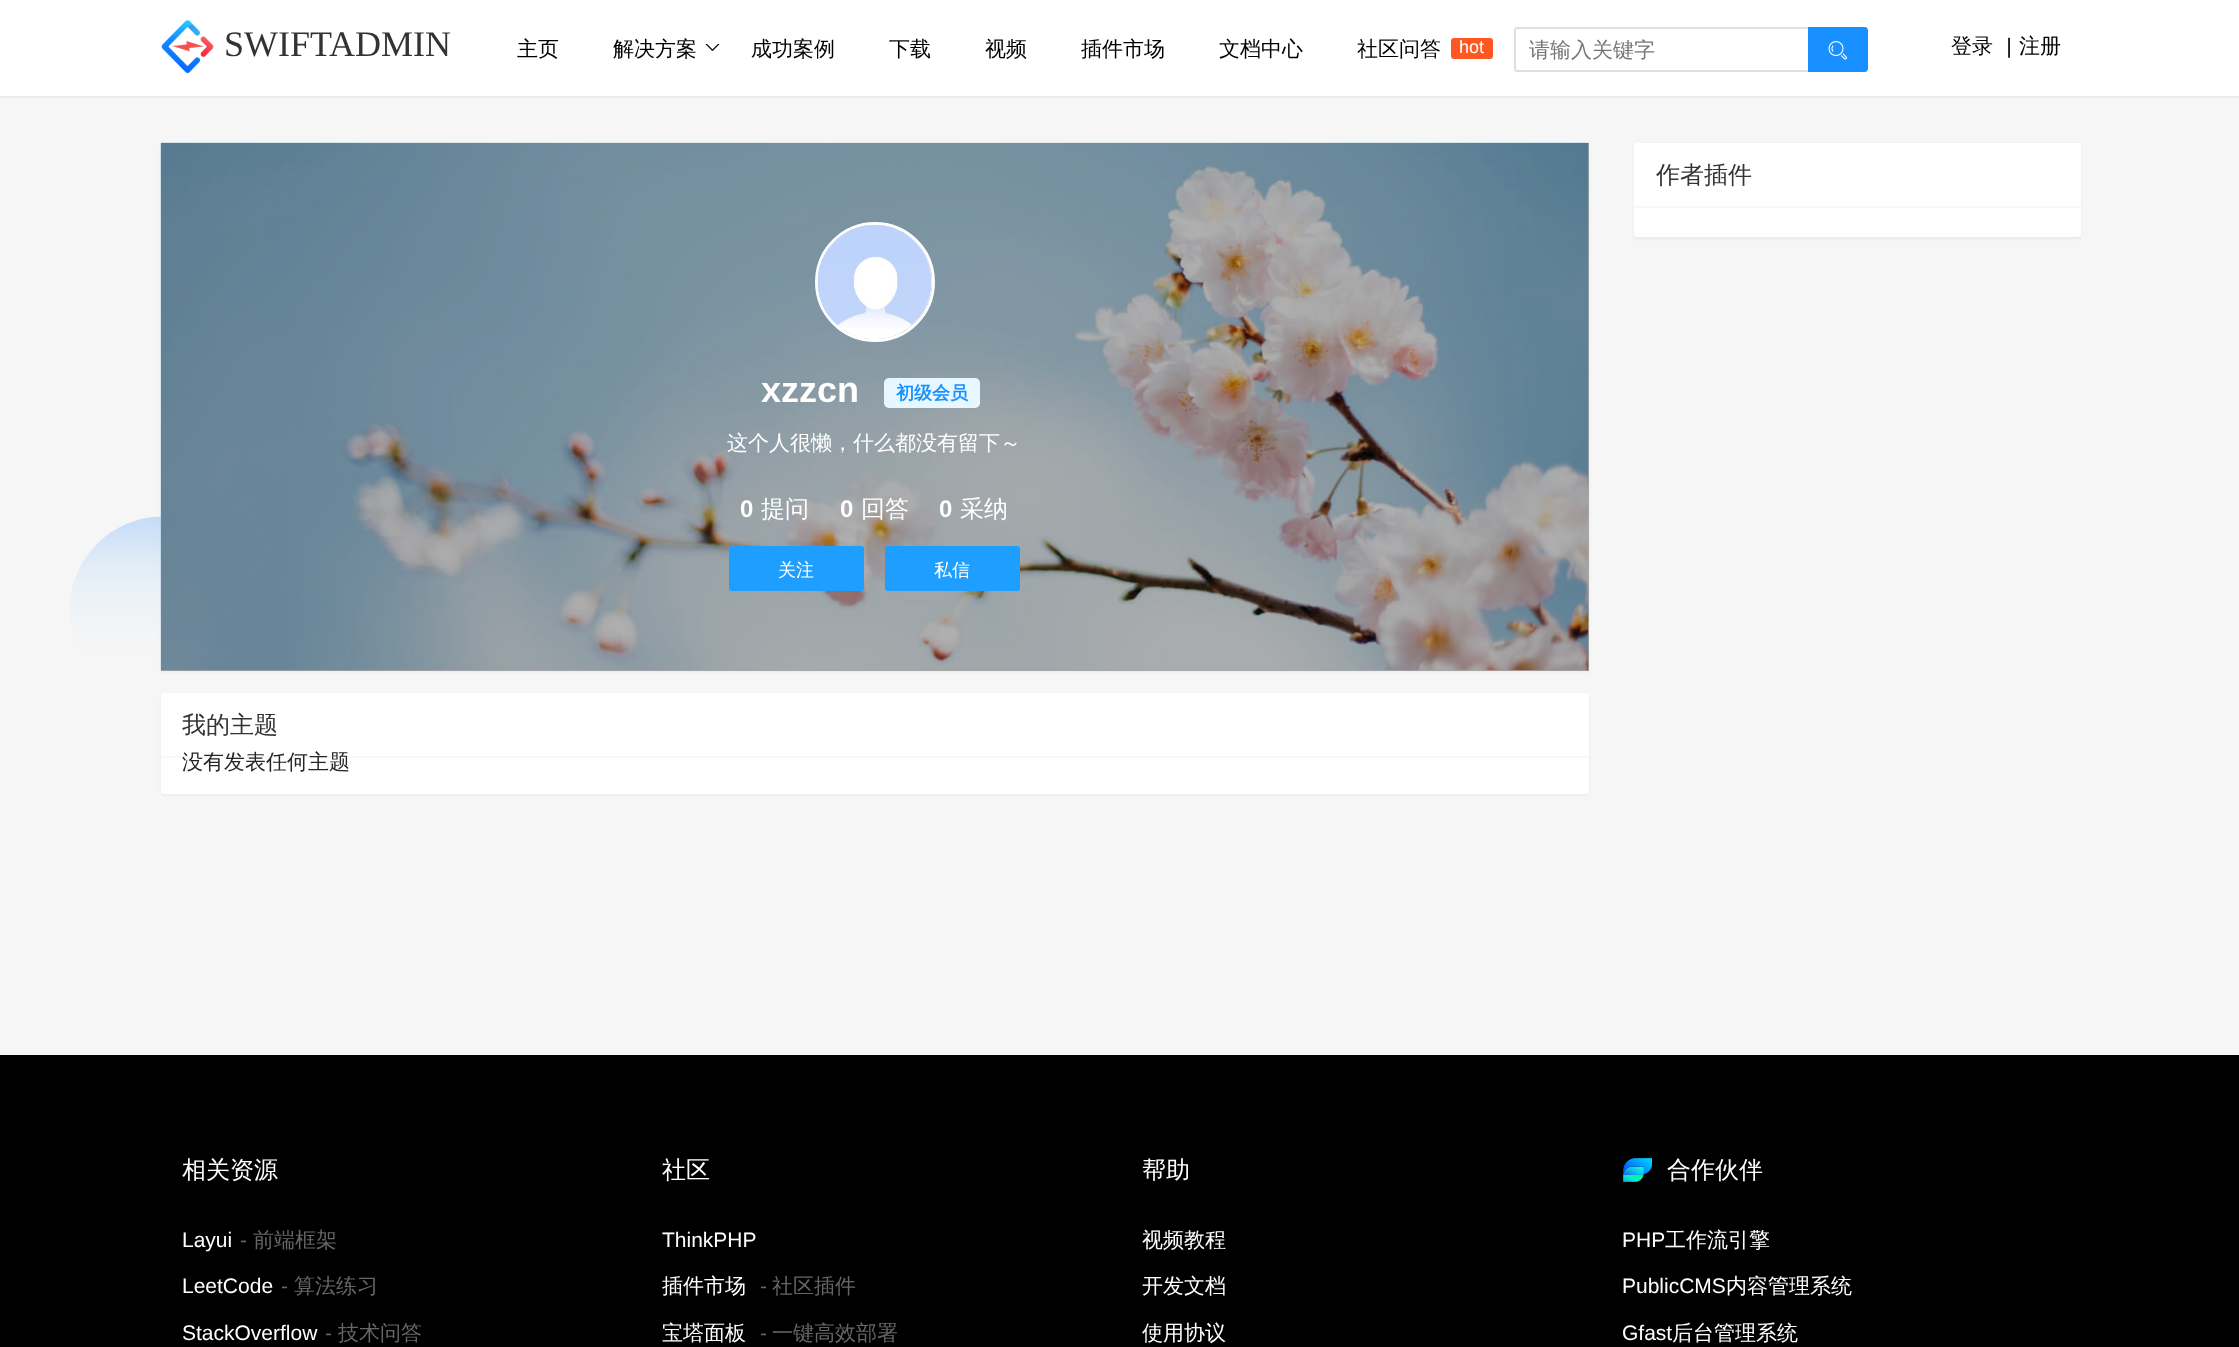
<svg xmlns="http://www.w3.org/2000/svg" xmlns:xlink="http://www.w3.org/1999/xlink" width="2239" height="1347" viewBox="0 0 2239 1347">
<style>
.cls-1{font:36px Liberation Serif;fill:#333333}
.cls-2{font:500 21px WenQuanYi Zen Hei;fill:#000000}
.cls-3{font:18px Liberation Sans;fill:#ffffff}
.cls-4{font:500 21px WenQuanYi Zen Hei;fill:#757575}
.cls-5{font:italic 21px Liberation Sans;fill:#000000}
.cls-6{font:500 24px WenQuanYi Zen Hei;fill:#333333}
.cls-7{font:bold 36px Liberation Sans;fill:#ffffff}
.cls-8{font:bold 18px WenQuanYi Zen Hei;fill:#1890ff}
.cls-9{font:500 21px WenQuanYi Zen Hei;fill:#ffffff}
.cls-10{font:bold 24px Liberation Sans;fill:#ffffff}
.cls-11{font:500 24px WenQuanYi Zen Hei;fill:#ffffff}
.cls-12{font:500 18px WenQuanYi Zen Hei;fill:#ffffff}
.cls-13{font:500 21px WenQuanYi Zen Hei;fill:#262626}
.cls-14{font:21px Liberation Sans;fill:#ffffff}
.cls-15{font:21px Liberation Sans;fill:#666666}
.cls-16{font:500 21px WenQuanYi Zen Hei;fill:#666666}
</style>
<defs>
<linearGradient id="g1" gradientUnits="userSpaceOnUse" x1="163" y1="703" x2="163" y2="517"><stop offset="0" stop-color="#f6f6f6"/><stop offset="0.22" stop-color="#f6f6f6"/><stop offset="0.38" stop-color="#f3f5f6"/><stop offset="0.55" stop-color="#edf2f7"/><stop offset="0.75" stop-color="#e1ecf7"/><stop offset="0.96" stop-color="#c9dff8"/><stop offset="1" stop-color="#c4ddf8"/></linearGradient>
</defs>
<rect width="100%" height="100%" fill="#f6f6f6"/>
<rect fill="#ffffff" x="0" y="0" width="2239" height="96"/>
<rect fill="#f0ecec" x="0" y="96" width="2239" height="2"/>
<image xlink:href="image0.png" x="161" y="19" width="53" height="54"/>
<image xlink:href="image1.png" x="705" y="44" width="15" height="7"/>
<rect fill="#ff5722" x="1451" y="38" width="42" height="21" rx="3"/>
<path fill="none" stroke="#e0e0e0" stroke-width="2" d="M1517 28H1810V71H1517C1516 71 1515 70 1515 69V30C1515 29 1516 28 1517 28Z"/>
<path fill="#1890ff" d="M1808 27H1865C1866.5 27 1868 28.5 1868 30V69C1868 70.5 1866.5 72 1865 72H1808Z"/>
<image xlink:href="image2.png" x="1828" y="41" width="19" height="19"/>
<circle fill="url(#g1)" cx="163" cy="610" r="93.5"/>
<rect fill="#000000" fill-opacity="0.05" filter="blur(1.5px)" x="1634" y="144" width="447" height="95" rx="3"/>
<rect fill="#ffffff" x="1634" y="143" width="447" height="94" rx="3"/>
<rect fill="#f8f8f8" x="1634" y="206" width="447" height="2"/>
<rect fill="#000000" fill-opacity="0.05" filter="blur(1.5px)" x="161" y="144" width="1428" height="528" rx="3"/>
<rect fill="#ffffff" x="161" y="143" width="1428" height="528" rx="3"/>
<rect fill="#646464" fill-opacity="0.1" x="161" y="143" width="1428" height="528"/>
<image xlink:href="image3.png" x="160" y="142" width="1429" height="529"/>
<rect fill="#000000" fill-opacity="0.3" x="161" y="143" width="1428" height="528"/>
<circle fill="none" stroke="#ffffff" stroke-width="3" cx="875" cy="282" r="58.5"/>
<circle fill="#ffffff" cx="875" cy="282" r="57"/>
<image xlink:href="image4.png" x="817" y="225" width="115" height="114"/>
<rect fill="#e6f7ff" x="884" y="378" width="96" height="30" rx="5"/>
<rect fill="#1e9fff" x="729" y="546" width="135" height="45" rx="3"/>
<rect fill="#1e9fff" x="885" y="546" width="135" height="45" rx="3"/>
<rect fill="#000000" fill-opacity="0.05" filter="blur(1.5px)" x="161" y="695" width="1428" height="100" rx="3"/>
<rect fill="#ffffff" x="161" y="693" width="1428" height="101" rx="3"/>
<rect fill="#f8f8f8" x="161" y="756" width="1428" height="2"/>
<rect fill="#000000" x="0" y="1055" width="2239" height="292"/>
<image xlink:href="image5.png" x="1623" y="1158" width="29" height="24"/>
<text class="cls-1" x="224" y="56">SWIFTADMIN</text>
<text class="cls-2" x="517" y="56">主页</text>
<text class="cls-2" x="613" y="56">解决方案</text>
<text class="cls-2" x="751" y="56">成功案例</text>
<text class="cls-2" x="889" y="56">下载</text>
<text class="cls-2" x="985" y="56">视频</text>
<text class="cls-2" x="1081" y="56">插件市场</text>
<text class="cls-2" x="1219" y="56">文档中心</text>
<text class="cls-2" x="1357" y="56">社区问答</text>
<text class="cls-3" x="1459" y="53">hot</text>
<text class="cls-4" x="1529" y="57">请输入关键字</text>
<text class="cls-2" x="1951" y="53">登录</text>
<text class="cls-5" x="2006" y="53">|</text>
<text class="cls-2" x="2019" y="53">注册</text>
<text class="cls-6" x="1656" y="183">作者插件</text>
<text class="cls-7" x="761" y="402">xzzcn</text>
<text class="cls-8" x="896" y="399">初级会员</text>
<text class="cls-9" x="727" y="450">这个人很懒，什么都没有留下～</text>
<text class="cls-10" x="740" y="517">0</text>
<text class="cls-11" x="761" y="517">提问</text>
<text class="cls-10" x="840" y="517">0</text>
<text class="cls-11" x="861" y="517">回答</text>
<text class="cls-10" x="939" y="517">0</text>
<text class="cls-11" x="960" y="517">采纳</text>
<text class="cls-12" x="778" y="576">关注</text>
<text class="cls-12" x="934" y="576">私信</text>
<text class="cls-6" x="182" y="733">我的主题</text>
<text class="cls-13" x="182" y="769">没有发表任何主题</text>
<text class="cls-11" x="182" y="1178">相关资源</text>
<text class="cls-14" x="182" y="1247">Layui</text>
<text class="cls-15" x="240" y="1247">-</text>
<text class="cls-16" x="253" y="1247">前端框架</text>
<text class="cls-14" x="182" y="1293">LeetCode</text>
<text class="cls-15" x="281" y="1293">-</text>
<text class="cls-16" x="294" y="1293">算法练习</text>
<text class="cls-14" x="182" y="1340">StackOverflow</text>
<text class="cls-15" x="325" y="1340">-</text>
<text class="cls-16" x="338" y="1340">技术问答</text>
<text class="cls-11" x="662" y="1178">社区</text>
<text class="cls-14" x="662" y="1247">ThinkPHP</text>
<text class="cls-9" x="662" y="1293">插件市场</text>
<text class="cls-15" x="760" y="1293">-</text>
<text class="cls-16" x="772" y="1293">社区插件</text>
<text class="cls-9" x="662" y="1340">宝塔面板</text>
<text class="cls-15" x="760" y="1340">-</text>
<text class="cls-16" x="772" y="1340">一键高效部署</text>
<text class="cls-11" x="1142" y="1178">帮助</text>
<text class="cls-9" x="1142" y="1247">视频教程</text>
<text class="cls-9" x="1142" y="1293">开发文档</text>
<text class="cls-9" x="1142" y="1340">使用协议</text>
<text class="cls-11" x="1667" y="1178">合作伙伴</text>
<text class="cls-14" x="1622" y="1247">PHP</text>
<text class="cls-9" x="1665" y="1247">工作流引擎</text>
<text class="cls-14" x="1622" y="1293">PublicCMS</text>
<text class="cls-9" x="1726" y="1293">内容管理系统</text>
<text class="cls-14" x="1622" y="1340">Gfast</text>
<text class="cls-9" x="1672" y="1340">后台管理系统</text>
</svg>
